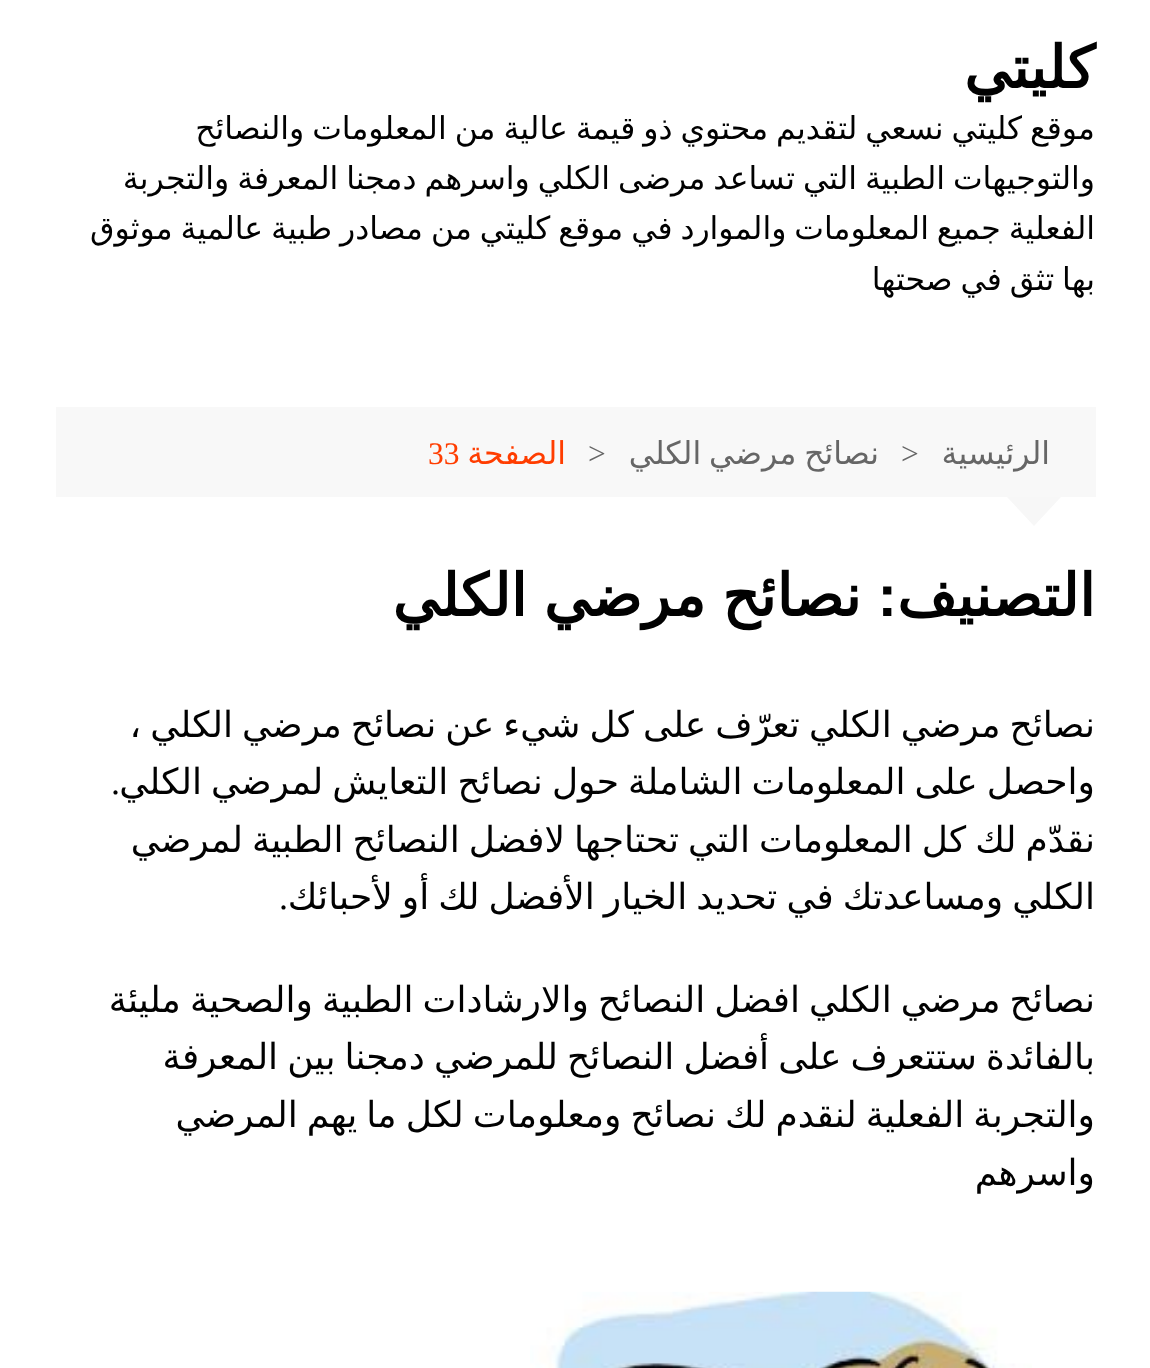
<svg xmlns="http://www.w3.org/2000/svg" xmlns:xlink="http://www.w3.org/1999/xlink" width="1150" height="1368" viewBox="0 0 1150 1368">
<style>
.cls-1{font:bold 58.5px DejaVu Sans;direction:rtl;fill:#010101}
.cls-2{font:31.5px DejaVu Sans;direction:rtl;fill:#010101}
.cls-3{font:31.5px DejaVu Sans;direction:rtl;fill:#666666}
.cls-4{font:31.5px Liberation Serif;fill:#666666}
.cls-5{font:31.5px DejaVu Sans;direction:rtl;fill:#ff3d00}
.cls-6{font:31.5px Liberation Serif;fill:#ff3d00}
.cls-7{font:bold 58.5px Liberation Sans;direction:rtl;fill:#010101}
.cls-8{font:36px DejaVu Sans;direction:rtl;fill:#010101}
.cls-9{font:36px Liberation Serif;direction:rtl;fill:#010101}
</style>
<defs>
<clipPath id="clip1"><rect x="56" y="565" width="1040" height="682"/></clipPath>
</defs>
<rect width="100%" height="100%" fill="#ffffff"/>
<rect fill="#f8f8f8" x="56" y="407" width="1040" height="90"/>
<path fill="#f7f7f7" d="M1007 497H1061L1034 526Z"/>
<image xlink:href="image0.png" x="530" y="1291" width="502" height="77"/>
<text class="cls-1" x="1095" y="88">كليتي</text>
<text class="cls-2"><tspan x="1095" y="139" word-spacing="-2.1">موقع كليتي نسعي لتقديم محتوي ذو قيمة عالية من المعلومات والنصائح</tspan><tspan x="1095" y="189" word-spacing="-2.1">والتوجيهات الطبية التي تساعد مرضى الكلي واسرهم دمجنا المعرفة والتجربة</tspan><tspan x="1095" y="239" word-spacing="-2.1">الفعلية جميع المعلومات والموارد في موقع كليتي من مصادر طبية عالمية موثوق</tspan><tspan x="1095" y="290" word-spacing="-2.1">بها تثق في صحتها</tspan></text>
<text class="cls-3" x="1050" y="464">الرئيسية</text>
<text class="cls-4" x="901" y="464">&gt;</text>
<text class="cls-3" x="879" y="464" word-spacing="-2.1">نصائح مرضي الكلي</text>
<text class="cls-4" x="588" y="464">&gt;</text>
<text class="cls-5" x="566" y="464">الصفحة</text>
<text class="cls-6" x="428" y="464">33</text>
<text class="cls-1" x="1095" y="616">التصنيف</text>
<text class="cls-7" x="897" y="616">:</text>
<text class="cls-1" x="861" y="616" word-spacing="-2">نصائح مرضي الكلي</text>
<g clip-path="url(#clip1)">
<text class="cls-8"><tspan x="1095" y="737" word-spacing="-2.4">نصائح مرضي الكلي تعرّف على كل شيء عن نصائح مرضي الكلي ،</tspan><tspan x="1095" y="794" word-spacing="-2.4">واحصل على المعلومات الشاملة حول نصائح التعايش لمرضي الكلي</tspan></text>
</g>
<text class="cls-9" x="120" y="794">.</text>
<g clip-path="url(#clip1)">
<text class="cls-8"><tspan x="1095" y="852" word-spacing="-2.4">نقدّم لك كل المعلومات التي تحتاجها لافضل النصائح الطبية لمرضي</tspan><tspan x="1095" y="909" word-spacing="-2.4">الكلي ومساعدتك في تحديد الخيار الأفضل لك أو لأحبائك</tspan></text>
</g>
<text class="cls-9" x="288" y="909">.</text>
<g clip-path="url(#clip1)">
<text class="cls-8"><tspan x="1095" y="1012" word-spacing="-2.4">نصائح مرضي الكلي افضل النصائح والارشادات الطبية والصحية مليئة</tspan><tspan x="1095" y="1069" word-spacing="-2.4">بالفائدة ستتعرف على أفضل النصائح للمرضي دمجنا بين المعرفة</tspan><tspan x="1095" y="1127" word-spacing="-2.4">والتجربة الفعلية لنقدم لك نصائح ومعلومات لكل ما يهم المرضي</tspan></text>
</g>
<text class="cls-8" x="1095" y="1185">واسرهم</text>
</svg>
